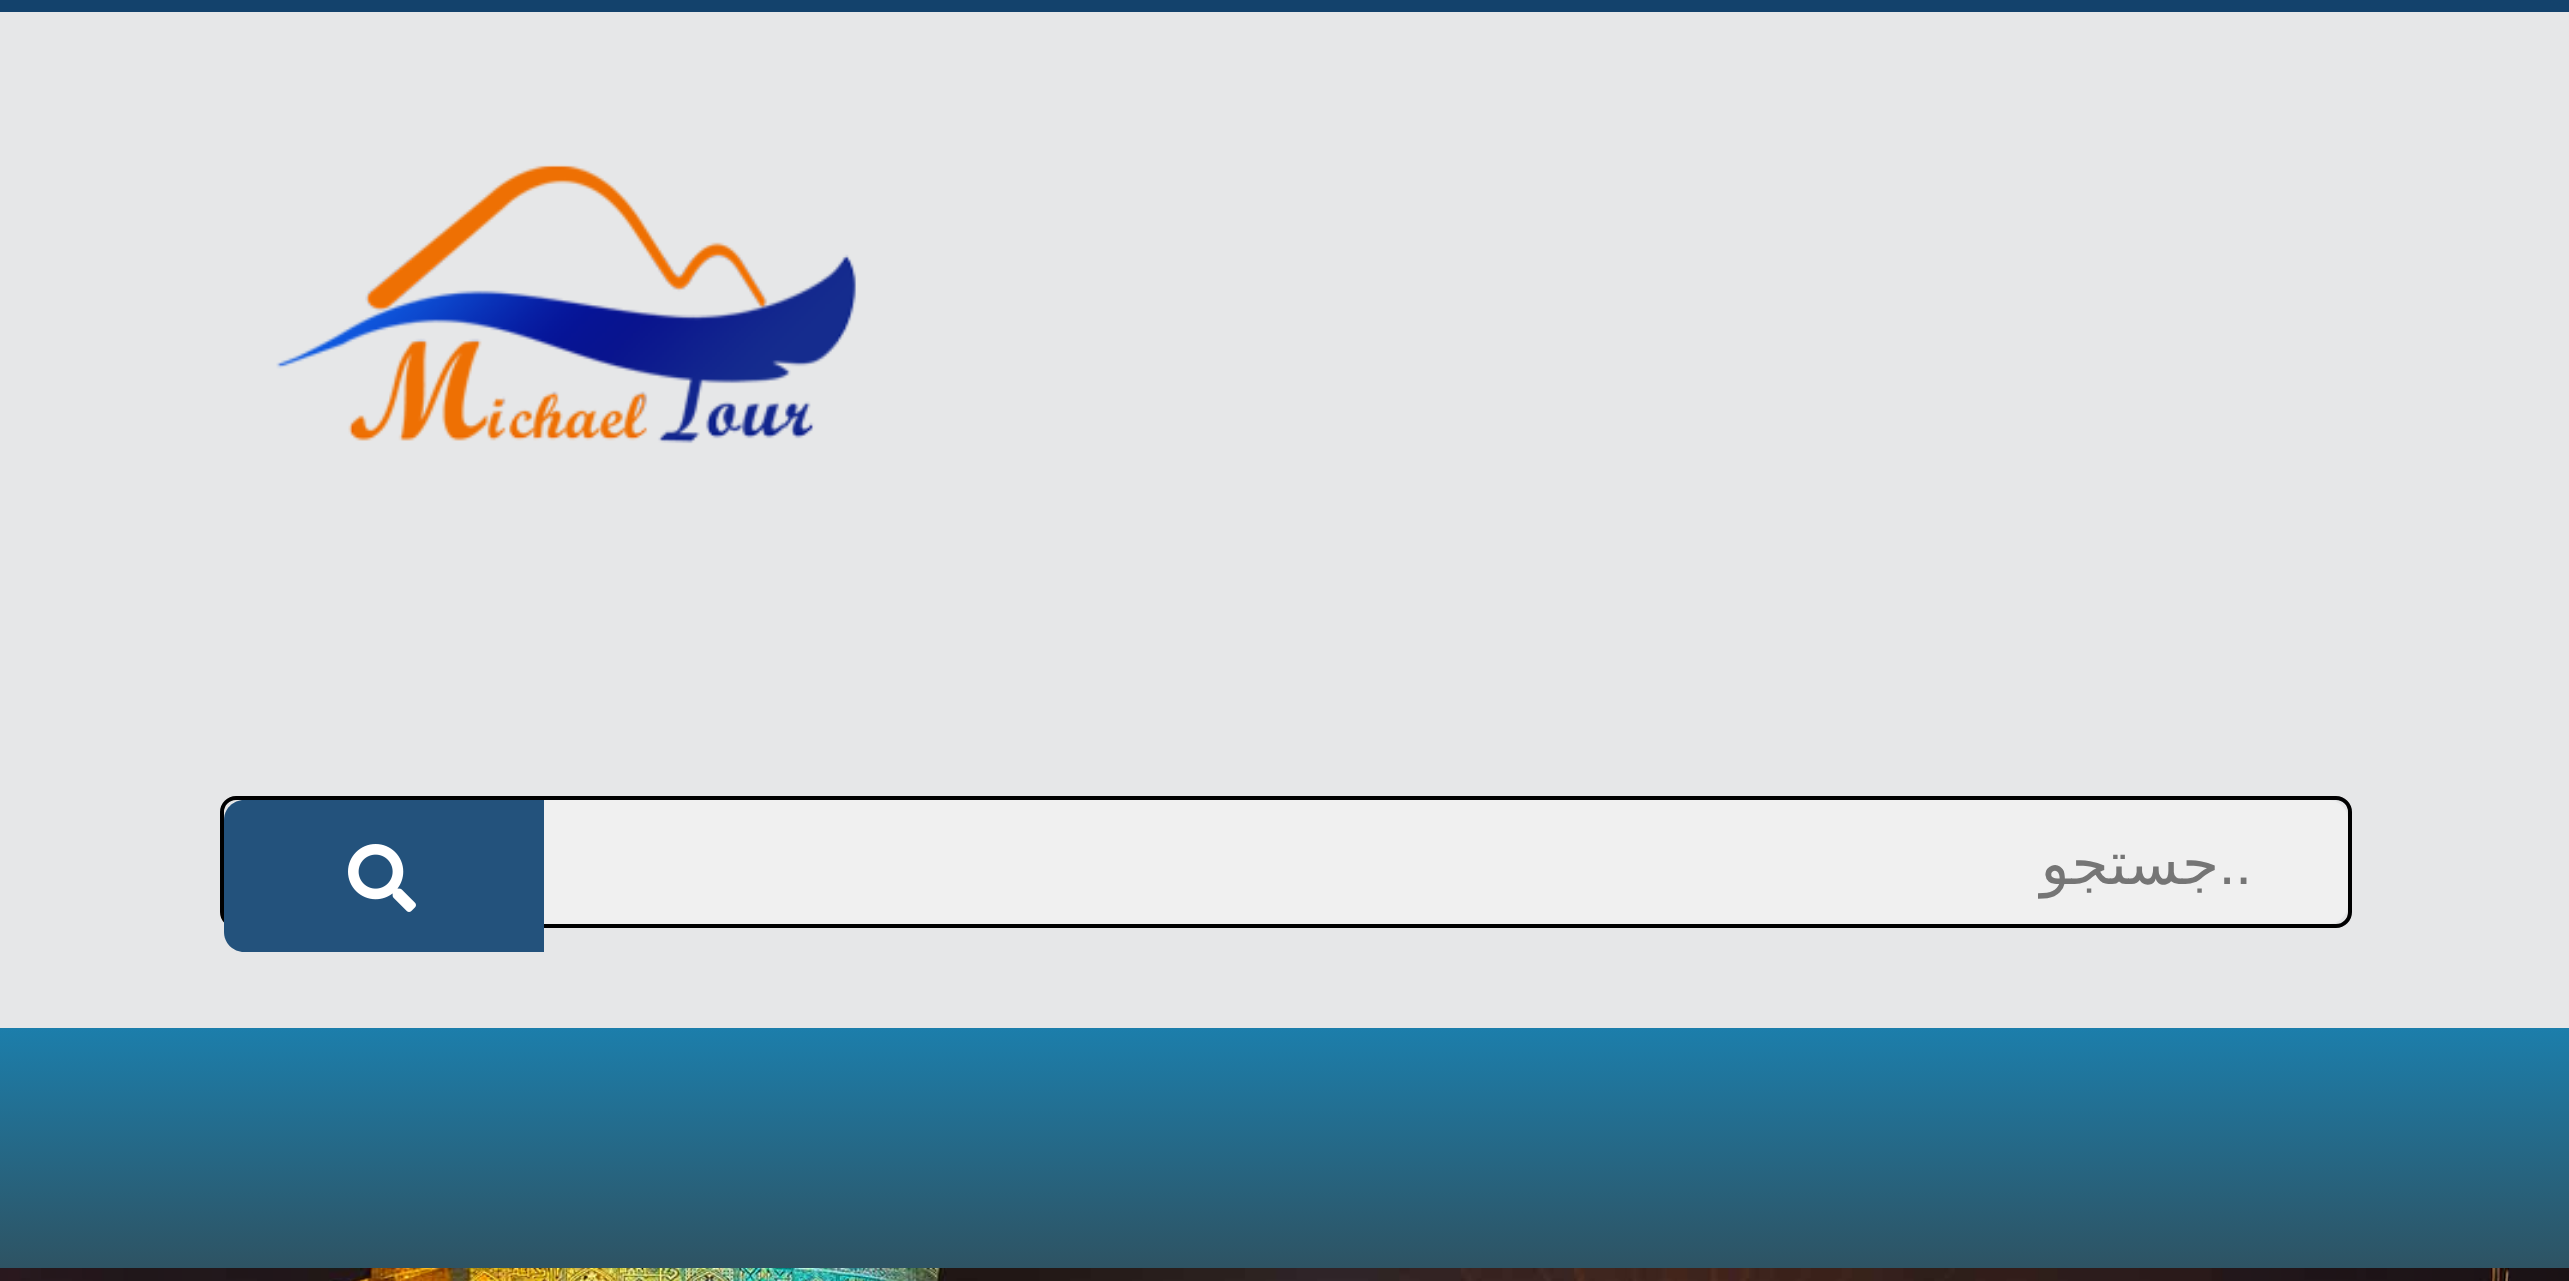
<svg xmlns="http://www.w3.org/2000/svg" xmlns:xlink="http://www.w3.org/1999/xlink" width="2569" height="1281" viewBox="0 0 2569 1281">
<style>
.cls-1{font:60px Liberation Sans;direction:rtl;fill:#757575}
.cls-2{font:60px DejaVu Sans;direction:rtl;fill:#757575}
</style>
<defs>
<linearGradient id="g1" gradientUnits="userSpaceOnUse" x1="1286" y1="1268" x2="1286" y2="1028"><stop offset="0" stop-color="#2e5363"/><stop offset="1" stop-color="#1c7eab"/></linearGradient>
</defs>
<rect width="100%" height="100%" fill="#e6e7e8"/>
<rect fill="#13426c" x="0" y="0" width="2569" height="12"/>
<image xlink:href="image0.png" x="276" y="164" width="580" height="280"/>
<rect fill="none" stroke="#000000" stroke-width="4" x="222" y="798" width="2128" height="128" rx="14"/>
<path fill="#f0f0f0" d="M544 800H2328C2339 800 2348 809 2348 820V904C2348 915 2339 924 2328 924H544Z"/>
<path fill="#23527c" d="M244 800H544V952H244C233 952 224 943 224 932V820C224 809 233 800 244 800Z"/>
<image xlink:href="image1.png" x="348" y="844" width="68" height="68"/>
<rect fill="url(#g1)" x="0" y="1028" width="2569" height="240"/>
<image xlink:href="image2.png" x="0" y="1268" width="2569" height="13"/>
<text class="cls-1" x="2252" y="884">..</text>
<text class="cls-2" x="2219" y="884">جستجو</text>
</svg>
